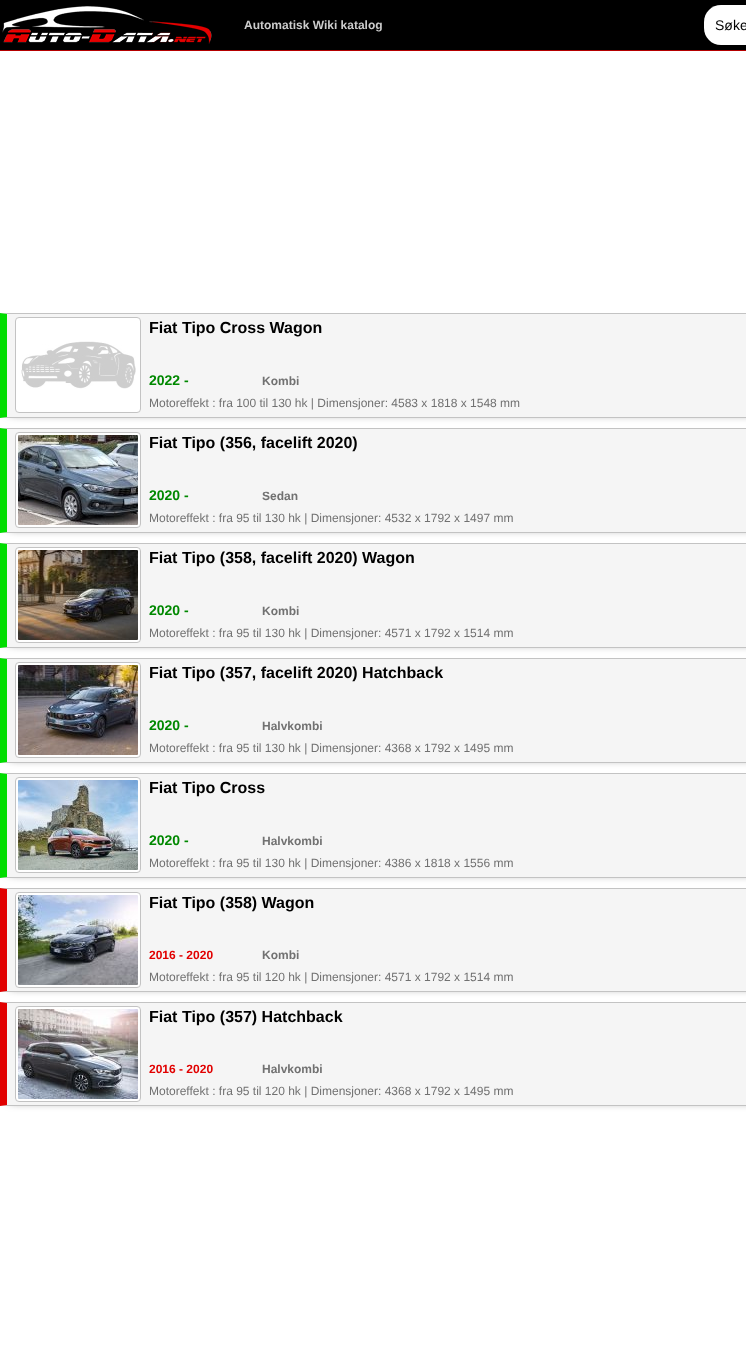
<svg xmlns="http://www.w3.org/2000/svg" xmlns:xlink="http://www.w3.org/1999/xlink" width="746" height="1369" viewBox="0 0 746 1369">
<style>
.cls-1{font:bold 12px Liberation Sans;fill:#cccccc}
.cls-2{font:14px Liberation Sans;fill:#000000}
.cls-3{font:bold 16px Liberation Sans;fill:#000000}
.cls-4{font:bold 14px Liberation Sans;fill:#008800}
.cls-5{font:bold 12px Liberation Sans;fill:#717171}
.cls-6{font:12px Liberation Sans;fill:#717171}
.cls-7{font:bold 12px Liberation Sans;fill:#e10000}
</style>
<rect width="100%" height="100%" fill="#ffffff"/>
<rect fill="#000000" x="0" y="0" width="746" height="50"/>
<rect fill="#b50000" x="0" y="50" width="746" height="1"/>
<image xlink:href="image0.png" x="2" y="6" width="210" height="38"/>
<path fill="#ffffff" d="M721 5H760C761.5 5 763 6.5 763 8V42C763 43.5 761.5 45 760 45H721C711.5 45 704 37.5 704 28V22C704 12.5 711.5 5 721 5Z"/>
<rect fill="#555555" filter="blur(5px)" x="10" y="328" width="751" height="85"/>
<rect fill="#f5f5f5" x="0" y="313" width="746" height="105"/>
<path fill="#c3c3c3" d="M0 313H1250V314H7Z"/>
<path fill="#c3c3c3" d="M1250 418H0L7 417H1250Z"/>
<path fill="#00dd00" d="M0 418V313L7 314V417Z"/>
<rect fill="#ffffff" stroke="#c3c3c3" x="15.5" y="317.5" width="125" height="95" rx="3.5"/>
<image xlink:href="image1.png" x="21" y="341" width="115" height="48"/>
<rect fill="#555555" filter="blur(5px)" x="10" y="443" width="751" height="85"/>
<rect fill="#f5f5f5" x="0" y="428" width="746" height="105"/>
<path fill="#c3c3c3" d="M0 428H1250V429H7Z"/>
<path fill="#c3c3c3" d="M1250 533H0L7 532H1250Z"/>
<path fill="#00dd00" d="M0 533V428L7 429V532Z"/>
<rect fill="#ffffff" stroke="#c3c3c3" x="15.5" y="432.5" width="125" height="95" rx="3.5"/>
<image xlink:href="image2.png" x="18" y="435" width="120" height="90"/>
<rect fill="#555555" filter="blur(5px)" x="10" y="558" width="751" height="85"/>
<rect fill="#f5f5f5" x="0" y="543" width="746" height="105"/>
<path fill="#c3c3c3" d="M0 543H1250V544H7Z"/>
<path fill="#c3c3c3" d="M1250 648H0L7 647H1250Z"/>
<path fill="#00dd00" d="M0 648V543L7 544V647Z"/>
<rect fill="#ffffff" stroke="#c3c3c3" x="15.5" y="547.5" width="125" height="95" rx="3.5"/>
<image xlink:href="image3.png" x="18" y="550" width="120" height="90"/>
<rect fill="#555555" filter="blur(5px)" x="10" y="673" width="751" height="85"/>
<rect fill="#f5f5f5" x="0" y="658" width="746" height="105"/>
<path fill="#c3c3c3" d="M0 658H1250V659H7Z"/>
<path fill="#c3c3c3" d="M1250 763H0L7 762H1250Z"/>
<path fill="#00dd00" d="M0 763V658L7 659V762Z"/>
<rect fill="#ffffff" stroke="#c3c3c3" x="15.5" y="662.5" width="125" height="95" rx="3.5"/>
<image xlink:href="image4.png" x="18" y="665" width="120" height="90"/>
<rect fill="#555555" filter="blur(5px)" x="10" y="788" width="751" height="85"/>
<rect fill="#f5f5f5" x="0" y="773" width="746" height="105"/>
<path fill="#c3c3c3" d="M0 773H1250V774H7Z"/>
<path fill="#c3c3c3" d="M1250 878H0L7 877H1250Z"/>
<path fill="#00dd00" d="M0 878V773L7 774V877Z"/>
<rect fill="#ffffff" stroke="#c3c3c3" x="15.5" y="777.5" width="125" height="95" rx="3.5"/>
<image xlink:href="image5.png" x="18" y="780" width="120" height="90"/>
<rect fill="#555555" filter="blur(5px)" x="10" y="903" width="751" height="84"/>
<rect fill="#f5f5f5" x="0" y="888" width="746" height="104"/>
<path fill="#c3c3c3" d="M0 888H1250V889H7Z"/>
<path fill="#c3c3c3" d="M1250 992H0L7 991H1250Z"/>
<path fill="#e10000" d="M0 992V888L7 889V991Z"/>
<rect fill="#ffffff" stroke="#c3c3c3" x="15.5" y="892.5" width="125" height="95" rx="3.5"/>
<image xlink:href="image6.png" x="18" y="895" width="120" height="90"/>
<rect fill="#555555" filter="blur(5px)" x="10" y="1017" width="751" height="84"/>
<rect fill="#f5f5f5" x="0" y="1002" width="746" height="104"/>
<path fill="#c3c3c3" d="M0 1002H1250V1003H7Z"/>
<path fill="#c3c3c3" d="M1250 1106H0L7 1105H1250Z"/>
<path fill="#e10000" d="M0 1106V1002L7 1003V1105Z"/>
<rect fill="#ffffff" stroke="#c3c3c3" x="15.5" y="1006.5" width="125" height="95" rx="3.5"/>
<image xlink:href="image7.png" x="18" y="1009" width="120" height="90"/>
<text class="cls-1" x="244" y="29">Automatisk Wiki katalog</text>
<text class="cls-2" x="715" y="30">Søke</text>
<text class="cls-3" x="149" y="333">Fiat Tipo Cross Wagon</text>
<text class="cls-4" x="149" y="385">2022 -</text>
<text class="cls-5" x="262" y="385">Kombi</text>
<text class="cls-6" x="149" y="407">Motoreffekt : fra 100 til 130 hk | Dimensjoner: 4583 x 1818 x 1548 mm</text>
<text class="cls-3" x="149" y="448">Fiat Tipo (356, facelift 2020)</text>
<text class="cls-4" x="149" y="500">2020 -</text>
<text class="cls-5" x="262" y="500">Sedan</text>
<text class="cls-6" x="149" y="522">Motoreffekt : fra 95 til 130 hk | Dimensjoner: 4532 x 1792 x 1497 mm</text>
<text class="cls-3" x="149" y="563">Fiat Tipo (358, facelift 2020) Wagon</text>
<text class="cls-4" x="149" y="615">2020 -</text>
<text class="cls-5" x="262" y="615">Kombi</text>
<text class="cls-6" x="149" y="637">Motoreffekt : fra 95 til 130 hk | Dimensjoner: 4571 x 1792 x 1514 mm</text>
<text class="cls-3" x="149" y="678">Fiat Tipo (357, facelift 2020) Hatchback</text>
<text class="cls-4" x="149" y="730">2020 -</text>
<text class="cls-5" x="262" y="730">Halvkombi</text>
<text class="cls-6" x="149" y="752">Motoreffekt : fra 95 til 130 hk | Dimensjoner: 4368 x 1792 x 1495 mm</text>
<text class="cls-3" x="149" y="793">Fiat Tipo Cross</text>
<text class="cls-4" x="149" y="845">2020 -</text>
<text class="cls-5" x="262" y="845">Halvkombi</text>
<text class="cls-6" x="149" y="867">Motoreffekt : fra 95 til 130 hk | Dimensjoner: 4386 x 1818 x 1556 mm</text>
<text class="cls-3" x="149" y="908">Fiat Tipo (358) Wagon</text>
<text class="cls-7" x="149" y="959">2016 - 2020</text>
<text class="cls-5" x="262" y="959">Kombi</text>
<text class="cls-6" x="149" y="981">Motoreffekt : fra 95 til 120 hk | Dimensjoner: 4571 x 1792 x 1514 mm</text>
<text class="cls-3" x="149" y="1022">Fiat Tipo (357) Hatchback</text>
<text class="cls-7" x="149" y="1073">2016 - 2020</text>
<text class="cls-5" x="262" y="1073">Halvkombi</text>
<text class="cls-6" x="149" y="1095">Motoreffekt : fra 95 til 120 hk | Dimensjoner: 4368 x 1792 x 1495 mm</text>
</svg>
